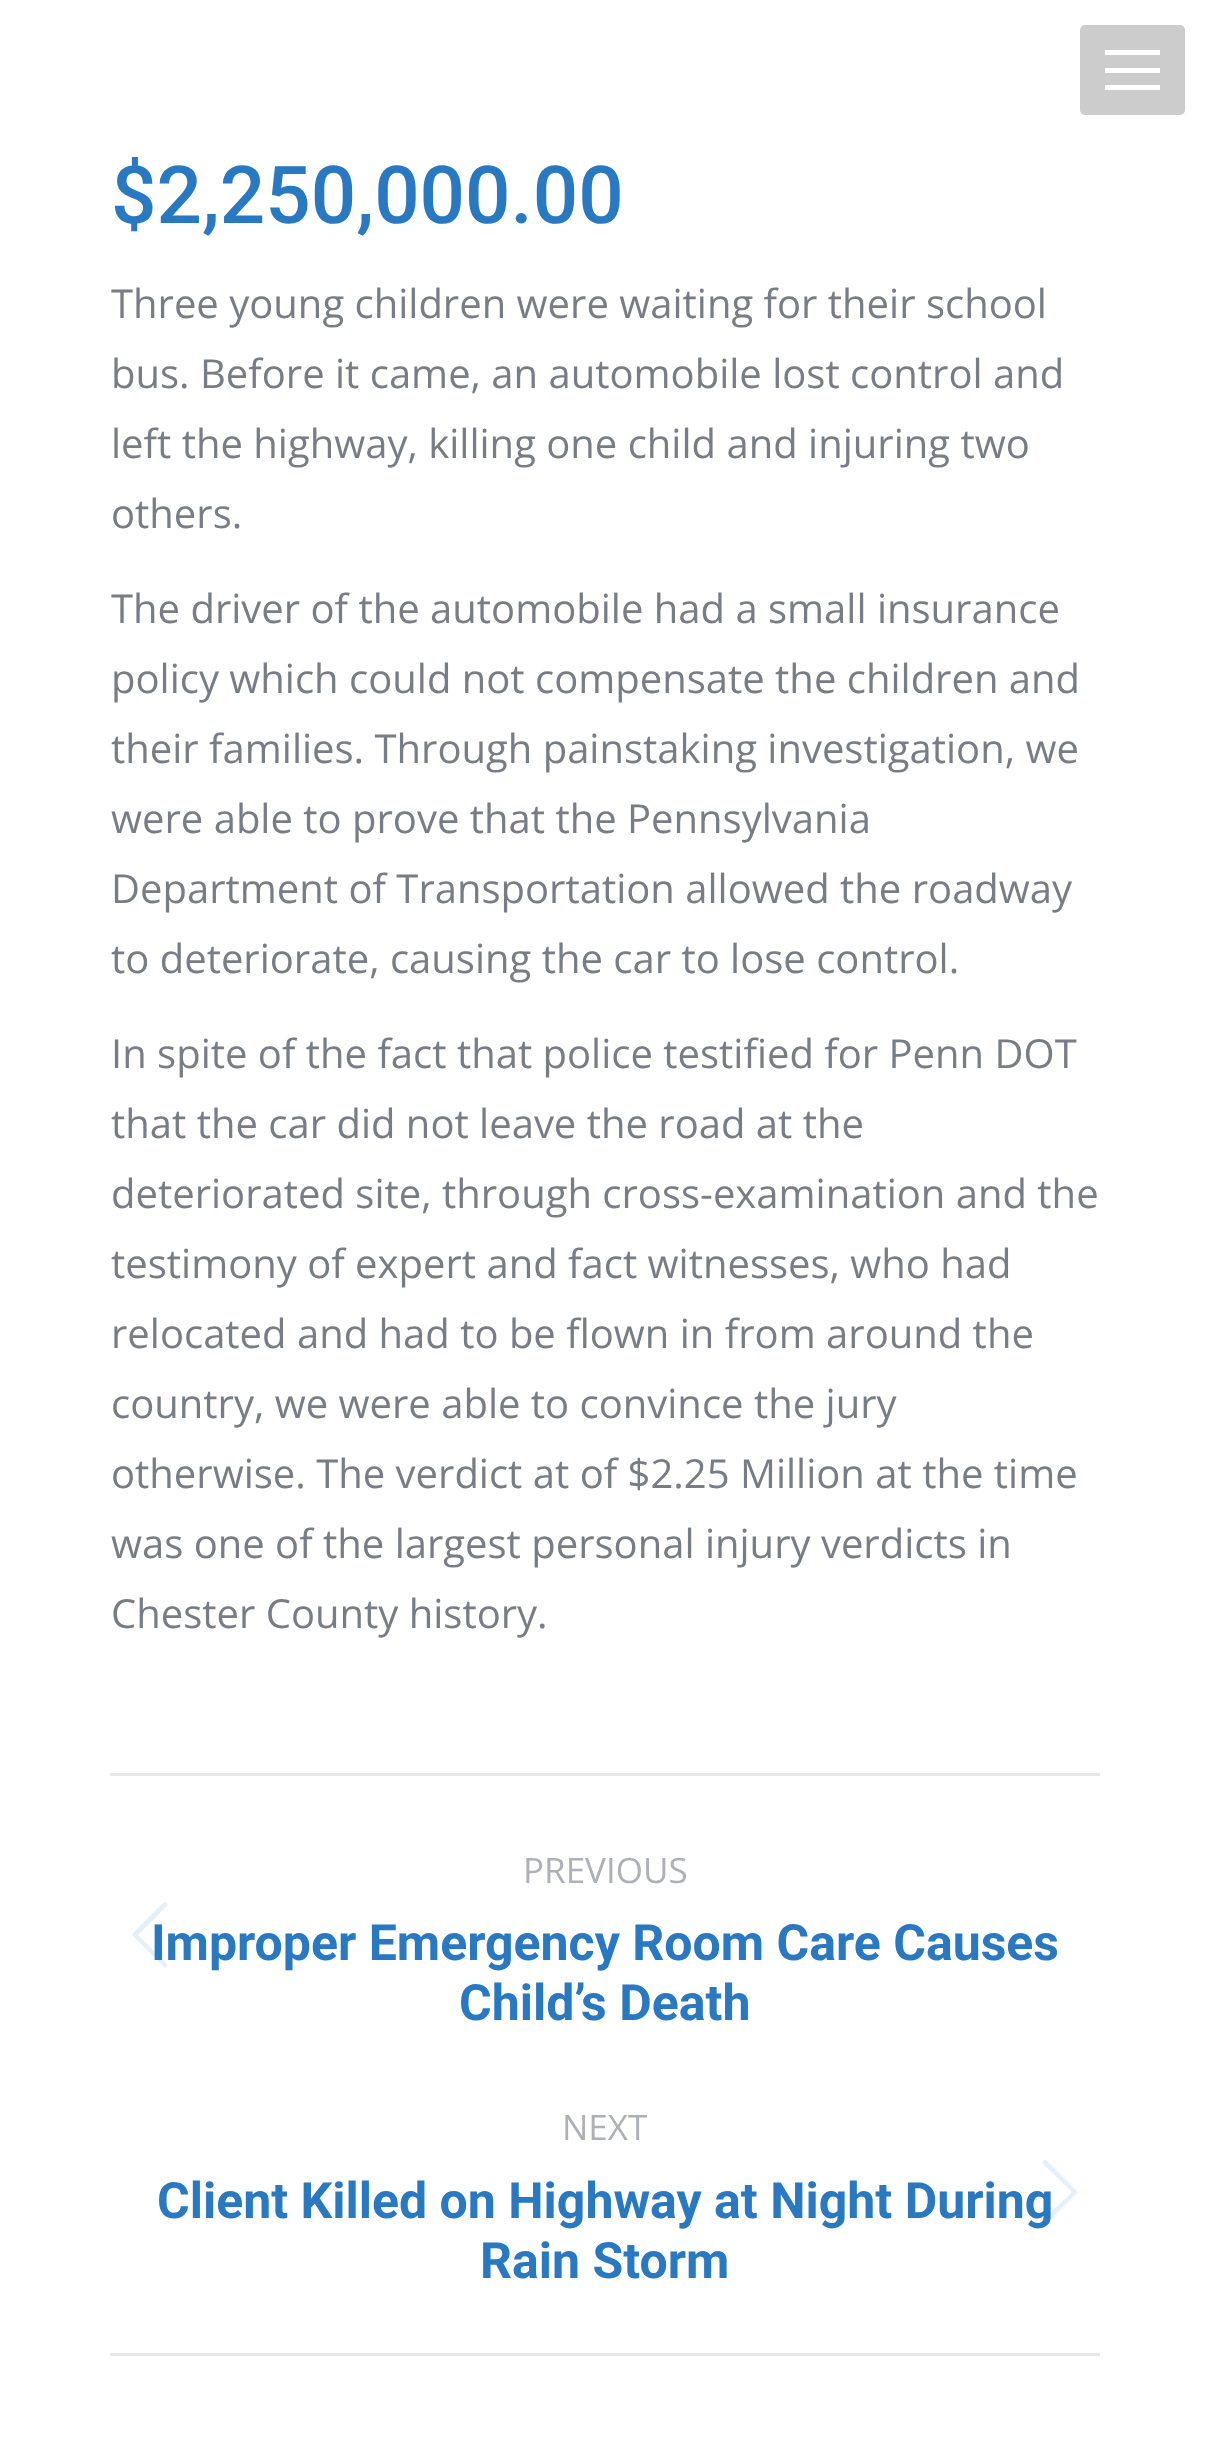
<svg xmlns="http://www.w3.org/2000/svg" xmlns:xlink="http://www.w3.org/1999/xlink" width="1210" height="2440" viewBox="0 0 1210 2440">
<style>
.cls-1{font:500 80px Roboto;fill:#2878c2}
.cls-2{font:40px Open Sans;fill:#787d85}
.cls-3{font:35px Open Sans;fill:#adb0b6}
.cls-4{font:bold 50px Roboto;fill:#2878c2}
</style>
<rect width="100%" height="100%" fill="#ffffff"/>
<rect fill="#cccccc" x="1080" y="25" width="105" height="90" rx="5"/>
<rect fill="#ffffff" x="1105" y="50" width="55" height="5"/>
<rect fill="#ffffff" x="1105" y="68" width="55" height="5"/>
<rect fill="#ffffff" x="1105" y="85" width="55" height="5"/>
<rect fill="#e6e7e9" x="110" y="1773" width="990" height="3"/>
<rect fill="#e6e7e9" x="110" y="2353" width="990" height="3"/>
<path fill="#2878c2" fill-opacity="0.12" d="M167 1903C168 1904 168 1906 167 1906L138 1935L166 1963C168 1964 168 1966 166 1966C166 1968 164 1968 163 1966L133 1936C132 1936 132 1934 133 1933L163 1903C164 1902 166 1902 167 1903Z"/>
<path fill="#2878c2" fill-opacity="0.12" d="M1043 2160C1044 2160 1046 2160 1046 2160L1076 2190C1078 2192 1078 2193 1076 2194L1046 2224C1046 2225 1044 2225 1043 2224C1042 2223 1042 2222 1043 2220L1072 2192L1043 2164C1042 2164 1042 2162 1043 2160Z"/>
<text class="cls-1" x="111" y="223">$2,250,000.00</text>
<text class="cls-2"><tspan x="111" y="318">Three young children were waiting for their school</tspan><tspan x="111" y="388">bus. Before it came, an automobile lost control and</tspan><tspan x="111" y="458">left the highway, killing one child and injuring two</tspan><tspan x="111" y="528">others.</tspan></text>
<text class="cls-2"><tspan x="111" y="623">The driver of the automobile had a small insurance</tspan><tspan x="111" y="693">policy which could not compensate the children and</tspan><tspan x="111" y="763">their families. Through painstaking investigation, we</tspan><tspan x="111" y="833">were able to prove that the Pennsylvania</tspan><tspan x="111" y="903">Department of Transportation allowed the roadway</tspan><tspan x="111" y="973">to deteriorate, causing the car to lose control.</tspan></text>
<text class="cls-2"><tspan x="111" y="1068">In spite of the fact that police testified for Penn DOT</tspan><tspan x="111" y="1138">that the car did not leave the road at the</tspan><tspan x="111" y="1208">deteriorated site, through cross-examination and the</tspan><tspan x="111" y="1278">testimony of expert and fact witnesses, who had</tspan><tspan x="111" y="1348">relocated and had to be flown in from around the</tspan><tspan x="111" y="1418">country, we were able to convince the jury</tspan><tspan x="111" y="1488">otherwise. The verdict at of $2.25 Million at the time</tspan><tspan x="111" y="1558">was one of the largest personal injury verdicts in</tspan><tspan x="111" y="1628">Chester County history.</tspan></text>
<text class="cls-3" x="523" y="1883">PREVIOUS</text>
<text class="cls-4" x="151" y="1960">Improper Emergency Room Care Causes</text>
<text class="cls-4" x="459" y="2020">Child’s Death</text>
<text class="cls-3" x="562" y="2140">NEXT</text>
<text class="cls-4" x="157" y="2218">Client Killed on Highway at Night During</text>
<text class="cls-4" x="480" y="2278">Rain Storm</text>
</svg>
